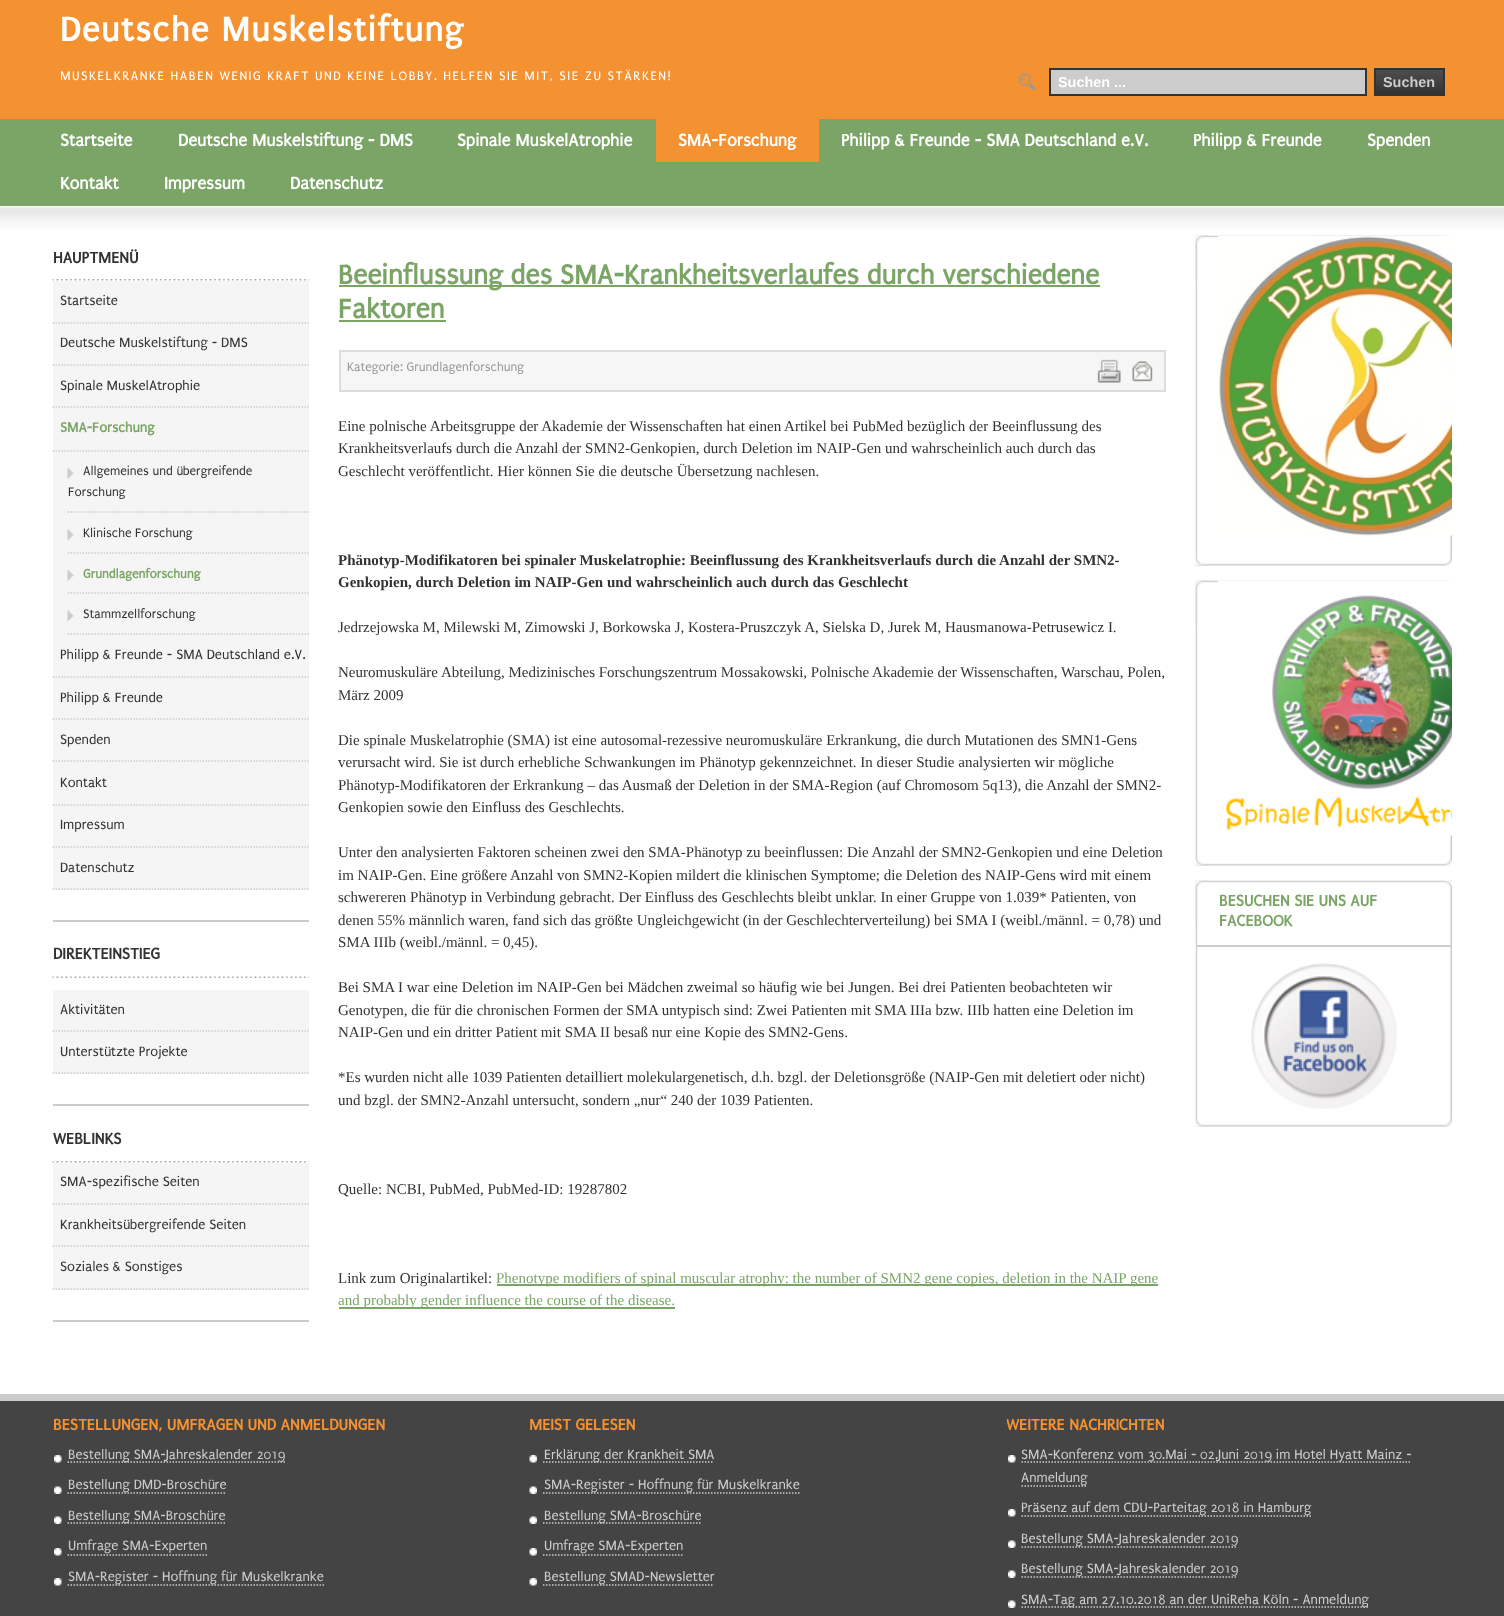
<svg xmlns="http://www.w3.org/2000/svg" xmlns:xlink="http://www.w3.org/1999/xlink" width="1504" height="1616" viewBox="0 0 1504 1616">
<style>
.cls-1{font:bold 36px Puritan;letter-spacing:1.5px;fill:#ffffff}
.cls-2{font:13.25px Puritan;letter-spacing:1.5px;fill:#ffffff}
.cls-3{font:bold 14.4px Liberation Sans;fill:#ffffff}
.cls-4{font:bold 14.4px Liberation Sans;fill:#cccccc}
.cls-5{font:bold 18px Puritan;fill:#ffffff}
.cls-6{font:bold 16.6px Puritan;fill:#333333}
.cls-7{font:14.4px Puritan;fill:#333333}
.cls-8{font:bold 14.4px Puritan;fill:#7ba566}
.cls-9{font:13.25px Puritan;fill:#333333}
.cls-10{font:bold 13.25px Puritan;fill:#7ba566}
.cls-11{font:bold 28.8px Puritan;fill:#7ba566}
.cls-12{font:13.25px Puritan;fill:#999999}
.cls-13{font:15px Liberation Serif;fill:#333333}
.cls-14{font:bold 15px Liberation Serif;fill:#333333}
.cls-15{font:15px Liberation Serif;fill:#7ba566}
.cls-16{font:bold 16.6px Puritan;fill:#7ba566}
.cls-17{font:bold 16.6px Puritan;fill:#f49131}
.cls-18{font:14.4px Puritan;fill:#cccccc}
</style>
<defs>
<clipPath id="clip1"><rect x="1007" y="1416" width="445" height="20"/></clipPath>
</defs>
<rect width="100%" height="100%" fill="#ffffff"/>
<rect fill="#f49131" x="0" y="0" width="1504" height="119"/>
<image xlink:href="image0.png" x="1018" y="73" width="17" height="17"/>
<rect fill="#cccccc" stroke="#333333" stroke-width="2" x="1050" y="69" width="316" height="26"/>
<rect fill="#333333" x="1376" y="91" width="67" height="3"/>
<image xlink:href="image1.png" x="1376" y="70" width="67" height="21"/>
<rect fill="none" stroke="#333333" stroke-width="2" x="1375" y="69" width="69" height="26"/>
<rect fill="#7ba566" x="0" y="119" width="1504" height="87"/>
<rect fill="#f49131" x="656" y="119" width="163" height="43"/>
<image xlink:href="image2.png" x="0" y="206" width="1504" height="23"/>
<rect fill="#cccccc" x="0" y="1394" width="1504" height="7"/>
<rect fill="#cccccc" x="53" y="920" width="256" height="2"/>
<image xlink:href="image3.png" x="52" y="279" width="257" height="2"/>
<rect fill="#f5f5f5" x="53" y="281" width="256" height="609"/>
<path fill="none" stroke="#cccccc" stroke-width="1.5" stroke-dasharray="1.5 1.5" d="M52.5 323H309"/>
<path fill="none" stroke="#cccccc" stroke-width="1.5" stroke-dasharray="1.5 1.5" d="M52.5 365H309"/>
<path fill="none" stroke="#cccccc" stroke-width="1.5" stroke-dasharray="1.5 1.5" d="M52.5 407H309"/>
<path fill="none" stroke="#cccccc" stroke-width="1.5" stroke-dasharray="1.5 1.5" d="M52.5 451H309"/>
<image xlink:href="image4.png" x="67" y="468" width="7" height="11"/>
<path fill="none" stroke="#cccccc" stroke-width="1.5" stroke-dasharray="1.5 1.5" d="M67.5 512H309"/>
<image xlink:href="image5.png" x="67" y="529" width="7" height="11"/>
<path fill="none" stroke="#cccccc" stroke-width="1.5" stroke-dasharray="1.5 1.5" d="M67.5 553H309"/>
<image xlink:href="image4.png" x="67" y="570" width="7" height="11"/>
<path fill="none" stroke="#cccccc" stroke-width="1.5" stroke-dasharray="1.5 1.5" d="M67.5 593H309"/>
<image xlink:href="image5.png" x="67" y="610" width="7" height="11"/>
<path fill="none" stroke="#cccccc" stroke-width="1.5" stroke-dasharray="1.5 1.5" d="M67.5 634H309"/>
<path fill="none" stroke="#cccccc" stroke-width="1.5" stroke-dasharray="1.5 1.5" d="M52.5 677H309"/>
<path fill="none" stroke="#cccccc" stroke-width="1.5" stroke-dasharray="1.5 1.5" d="M52.5 719H309"/>
<path fill="none" stroke="#cccccc" stroke-width="1.5" stroke-dasharray="1.5 1.5" d="M52.5 761H309"/>
<path fill="none" stroke="#cccccc" stroke-width="1.5" stroke-dasharray="1.5 1.5" d="M52.5 805H309"/>
<path fill="none" stroke="#cccccc" stroke-width="1.5" stroke-dasharray="1.5 1.5" d="M52.5 847H309"/>
<path fill="none" stroke="#cccccc" stroke-width="1.5" stroke-dasharray="1.5 1.5" d="M52.5 889H309"/>
<rect fill="#cccccc" x="53" y="1104" width="256" height="2"/>
<image xlink:href="image6.png" x="52" y="976" width="257" height="2"/>
<rect fill="#f5f5f5" x="53" y="990" width="256" height="84"/>
<path fill="none" stroke="#cccccc" stroke-width="1.5" stroke-dasharray="1.5 1.5" d="M52.5 1031H309"/>
<path fill="none" stroke="#cccccc" stroke-width="1.5" stroke-dasharray="1.5 1.5" d="M52.5 1073H309"/>
<rect fill="#cccccc" x="53" y="1320" width="256" height="2"/>
<image xlink:href="image3.png" x="52" y="1161" width="257" height="2"/>
<rect fill="#f5f5f5" x="53" y="1163" width="256" height="127"/>
<path fill="none" stroke="#cccccc" stroke-width="1.5" stroke-dasharray="1.5 1.5" d="M52.5 1204H309"/>
<path fill="none" stroke="#cccccc" stroke-width="1.5" stroke-dasharray="1.5 1.5" d="M52.5 1246H309"/>
<path fill="none" stroke="#cccccc" stroke-width="1.5" stroke-dasharray="1.5 1.5" d="M52.5 1289H309"/>
<rect fill="#7ba566" x="339" y="285" width="761" height="2"/>
<rect fill="#7ba566" x="339" y="320" width="107" height="2"/>
<rect fill="#f6f6f6" stroke="#dddddd" stroke-width="2" x="340" y="351" width="825" height="40"/>
<image xlink:href="image7.png" x="1097" y="359" width="24" height="24"/>
<image xlink:href="image8.png" x="1132" y="361" width="21" height="21"/>
<rect fill="#7ba566" x="497" y="1284" width="661" height="2"/>
<rect fill="#7ba566" x="339" y="1307" width="336" height="2"/>
<image xlink:href="image9.png" x="1195" y="235" width="257" height="331"/>
<image xlink:href="image10.png" x="1195" y="235" width="14" height="331"/>
<image xlink:href="image11.png" x="1195" y="235" width="257" height="47"/>
<image xlink:href="image12.png" x="1195" y="235" width="14" height="47"/>
<image xlink:href="image13.png" x="1218" y="236" width="234" height="300"/>
<image xlink:href="image14.png" x="1195" y="580" width="257" height="286"/>
<image xlink:href="image15.png" x="1195" y="580" width="14" height="286"/>
<image xlink:href="image16.png" x="1195" y="580" width="257" height="47"/>
<image xlink:href="image12.png" x="1195" y="580" width="14" height="47"/>
<image xlink:href="image17.png" x="1218" y="580" width="234" height="256"/>
<image xlink:href="image18.png" x="1195" y="880" width="257" height="247"/>
<image xlink:href="image19.png" x="1195" y="880" width="14" height="247"/>
<image xlink:href="image16.png" x="1195" y="880" width="257" height="47"/>
<image xlink:href="image12.png" x="1195" y="880" width="14" height="47"/>
<rect fill="#cccccc" x="1196" y="945" width="256" height="2"/>
<image xlink:href="image20.png" x="1251" y="963" width="146" height="146"/>
<rect fill="#444444" x="0" y="1401" width="1504" height="215"/>
<image xlink:href="image21.png" x="54" y="1455" width="8" height="8"/>
<path fill="none" stroke="#cccccc" stroke-width="1.5" stroke-dasharray="1.5 1.5" d="M67.5 1462H285"/>
<image xlink:href="image22.png" x="54" y="1486" width="8" height="8"/>
<path fill="none" stroke="#cccccc" stroke-width="1.5" stroke-dasharray="1.5 1.5" d="M67.5 1493H226.5"/>
<image xlink:href="image22.png" x="54" y="1516" width="8" height="8"/>
<path fill="none" stroke="#cccccc" stroke-width="1.5" stroke-dasharray="1.5 1.5" d="M67.5 1523H225"/>
<image xlink:href="image21.png" x="54" y="1548" width="8" height="8"/>
<path fill="none" stroke="#cccccc" stroke-width="1.5" stroke-dasharray="1.5 1.5" d="M67.5 1555H207"/>
<image xlink:href="image21.png" x="54" y="1578" width="8" height="8"/>
<path fill="none" stroke="#cccccc" stroke-width="1.5" stroke-dasharray="1.5 1.5" d="M67.5 1585H324"/>
<image xlink:href="image23.png" x="529" y="1455" width="8" height="8"/>
<path fill="none" stroke="#cccccc" stroke-width="1.5" stroke-dasharray="1.5 1.5" d="M543 1462H714"/>
<image xlink:href="image24.png" x="529" y="1486" width="8" height="8"/>
<path fill="none" stroke="#cccccc" stroke-width="1.5" stroke-dasharray="1.5 1.5" d="M543 1493H799.5"/>
<image xlink:href="image24.png" x="529" y="1516" width="8" height="8"/>
<path fill="none" stroke="#cccccc" stroke-width="1.5" stroke-dasharray="1.5 1.5" d="M543 1523H700.5"/>
<image xlink:href="image23.png" x="529" y="1548" width="8" height="8"/>
<path fill="none" stroke="#cccccc" stroke-width="1.5" stroke-dasharray="1.5 1.5" d="M543 1555H682.5"/>
<image xlink:href="image23.png" x="529" y="1578" width="8" height="8"/>
<path fill="none" stroke="#cccccc" stroke-width="1.5" stroke-dasharray="1.5 1.5" d="M543 1585H714"/>
<image xlink:href="image21.png" x="1008" y="1455" width="8" height="8"/>
<path fill="none" stroke="#cccccc" stroke-width="1.5" stroke-dasharray="1.5 1.5" d="M1021.5 1462H1411.5"/>
<path fill="none" stroke="#cccccc" stroke-width="1.5" stroke-dasharray="1.5 1.5" d="M1021.5 1486H1087.5"/>
<image xlink:href="image21.png" x="1008" y="1509" width="8" height="8"/>
<path fill="none" stroke="#cccccc" stroke-width="1.5" stroke-dasharray="1.5 1.5" d="M1021.5 1516H1311"/>
<image xlink:href="image22.png" x="1008" y="1540" width="8" height="8"/>
<path fill="none" stroke="#cccccc" stroke-width="1.5" stroke-dasharray="1.5 1.5" d="M1021.5 1547H1237.5"/>
<image xlink:href="image22.png" x="1008" y="1570" width="8" height="8"/>
<path fill="none" stroke="#cccccc" stroke-width="1.5" stroke-dasharray="1.5 1.5" d="M1021.5 1577H1237.5"/>
<image xlink:href="image22.png" x="1008" y="1600" width="8" height="8"/>
<path fill="none" stroke="#cccccc" stroke-width="1.5" stroke-dasharray="1.5 1.5" d="M1021.5 1607H1369.5"/>
<text class="cls-1" x="60" y="41">Deutsche Muskelstiftung</text>
<text class="cls-2" x="60" y="80">MUSKELKRANKE HABEN WENIG KRAFT UND KEINE LOBBY. HELFEN SIE MIT, SIE ZU STÄRKEN!</text>
<text class="cls-3" x="1058" y="87">Suchen ...</text>
<text class="cls-4" x="1383" y="87">Suchen</text>
<text class="cls-5" x="60" y="146">Startseite</text>
<text class="cls-5" x="178" y="146">Deutsche Muskelstiftung - DMS</text>
<text class="cls-5" x="457" y="146">Spinale MuskelAtrophie</text>
<text class="cls-5" x="678" y="146">SMA-Forschung</text>
<text class="cls-5" x="841" y="146">Philipp &amp; Freunde - SMA Deutschland e.V.</text>
<text class="cls-5" x="1193" y="146">Philipp &amp; Freunde</text>
<text class="cls-5" x="1367" y="146">Spenden</text>
<text class="cls-5" x="60" y="189">Kontakt</text>
<text class="cls-5" x="164" y="189">Impressum</text>
<text class="cls-5" x="290" y="189">Datenschutz</text>
<text class="cls-6" x="53" y="263">HAUPTMENÜ</text>
<text class="cls-7" x="60" y="305">Startseite</text>
<text class="cls-7" x="60" y="347">Deutsche Muskelstiftung - DMS</text>
<text class="cls-7" x="60" y="390">Spinale MuskelAtrophie</text>
<text class="cls-8" x="60" y="432">SMA-Forschung</text>
<text class="cls-9" x="83" y="475">Allgemeines und übergreifende</text>
<text class="cls-9" x="68" y="496">Forschung</text>
<text class="cls-9" x="83" y="537">Klinische Forschung</text>
<text class="cls-10" x="83" y="578">Grundlagenforschung</text>
<text class="cls-9" x="83" y="618">Stammzellforschung</text>
<text class="cls-7" x="60" y="659">Philipp &amp; Freunde - SMA Deutschland e.V.</text>
<text class="cls-7" x="60" y="702">Philipp &amp; Freunde</text>
<text class="cls-7" x="60" y="744">Spenden</text>
<text class="cls-7" x="60" y="787">Kontakt</text>
<text class="cls-7" x="60" y="829">Impressum</text>
<text class="cls-7" x="60" y="872">Datenschutz</text>
<text class="cls-6" x="53" y="959">DIREKTEINSTIEG</text>
<text class="cls-7" x="60" y="1014">Aktivitäten</text>
<text class="cls-7" x="60" y="1056">Unterstützte Projekte</text>
<text class="cls-6" x="53" y="1144">WEBLINKS</text>
<text class="cls-7" x="60" y="1186">SMA-spezifische Seiten</text>
<text class="cls-7" x="60" y="1229">Krankheitsübergreifende Seiten</text>
<text class="cls-7" x="60" y="1271">Soziales &amp; Sonstiges</text>
<text class="cls-11"><tspan x="338" y="284">Beeinflussung des SMA-Krankheitsverlaufes durch verschiedene</tspan><tspan x="338" y="318">Faktoren</tspan></text>
<text class="cls-12" x="347" y="371">Kategorie: Grundlagenforschung</text>
<text class="cls-13"><tspan x="338" y="431">Eine polnische Arbeitsgruppe der Akademie der Wissenschaften hat einen Artikel bei PubMed bezüglich der Beeinflussung des</tspan><tspan x="338" y="453">Krankheitsverlaufs durch die Anzahl der SMN2-Genkopien, durch Deletion im NAIP-Gen und wahrscheinlich auch durch das</tspan><tspan x="338" y="476">Geschlecht veröffentlicht. Hier können Sie die deutsche Übersetzung nachlesen.</tspan></text>
<text class="cls-14"><tspan x="338" y="565">Phänotyp-Modifikatoren bei spinaler Muskelatrophie: Beeinflussung des Krankheitsverlaufs durch die Anzahl der SMN2-</tspan><tspan x="338" y="587">Genkopien, durch Deletion im NAIP-Gen und wahrscheinlich auch durch das Geschlecht</tspan></text>
<text class="cls-13" x="338" y="632">Jedrzejowska M, Milewski M, Zimowski J, Borkowska J, Kostera-Pruszczyk A, Sielska D, Jurek M, Hausmanowa-Petrusewicz I.</text>
<text class="cls-13"><tspan x="338" y="677">Neuromuskuläre Abteilung, Medizinisches Forschungszentrum Mossakowski, Polnische Akademie der Wissenschaften, Warschau, Polen,</tspan><tspan x="338" y="700">März 2009</tspan></text>
<text class="cls-13"><tspan x="338" y="745">Die spinale Muskelatrophie (SMA) ist eine autosomal-rezessive neuromuskuläre Erkrankung, die durch Mutationen des SMN1-Gens</tspan><tspan x="338" y="767">verursacht wird. Sie ist durch erhebliche Schwankungen im Phänotyp gekennzeichnet. In dieser Studie analysierten wir mögliche</tspan><tspan x="338" y="790">Phänotyp-Modifikatoren der Erkrankung – das Ausmaß der Deletion in der SMA-Region (auf Chromosom 5q13), die Anzahl der SMN2-</tspan><tspan x="338" y="812">Genkopien sowie den Einfluss des Geschlechts.</tspan></text>
<text class="cls-13"><tspan x="338" y="857">Unter den analysierten Faktoren scheinen zwei den SMA-Phänotyp zu beeinflussen: Die Anzahl der SMN2-Genkopien und eine Deletion</tspan><tspan x="338" y="880">im NAIP-Gen. Eine größere Anzahl von SMN2-Kopien mildert die klinischen Symptome; die Deletion des NAIP-Gens wird mit einem</tspan><tspan x="338" y="902">schwereren Phänotyp in Verbindung gebracht. Der Einfluss des Geschlechts bleibt unklar. In einer Gruppe von 1.039* Patienten, von</tspan><tspan x="338" y="925">denen 55% männlich waren, fand sich das größte Ungleichgewicht (in der Geschlechterverteilung) bei SMA I (weibl./männl. = 0,78) und</tspan><tspan x="338" y="947">SMA IIIb (weibl./männl. = 0,45).</tspan></text>
<text class="cls-13"><tspan x="338" y="992">Bei SMA I war eine Deletion im NAIP-Gen bei Mädchen zweimal so häufig wie bei Jungen. Bei drei Patienten beobachteten wir</tspan><tspan x="338" y="1015">Genotypen, die für die chronischen Formen der SMA untypisch sind: Zwei Patienten mit SMA IIIa bzw. IIIb hatten eine Deletion im</tspan><tspan x="338" y="1037">NAIP-Gen und ein dritter Patient mit SMA II besaß nur eine Kopie des SMN2-Gens.</tspan></text>
<text class="cls-13"><tspan x="338" y="1082">*Es wurden nicht alle 1039 Patienten detailliert molekulargenetisch, d.h. bzgl. der Deletionsgröße (NAIP-Gen mit deletiert oder nicht)</tspan><tspan x="338" y="1105">und bzgl. der SMN2-Anzahl untersucht, sondern „nur“ 240 der 1039 Patienten.</tspan></text>
<text class="cls-13" x="338" y="1194">Quelle: NCBI, PubMed, PubMed-ID: 19287802</text>
<text class="cls-13" x="338" y="1283">Link zum Originalartikel:</text>
<text class="cls-15" x="496" y="1283">Phenotype modifiers of spinal muscular atrophy: the number of SMN2 gene copies, deletion in the NAIP gene</text>
<text class="cls-15" x="338" y="1305">and probably gender influence the course of the disease.</text>
<text class="cls-16"><tspan x="1219" y="906">BESUCHEN SIE UNS AUF</tspan><tspan x="1219" y="926">FACEBOOK</tspan></text>
<text class="cls-17" x="53" y="1430">BESTELLUNGEN, UMFRAGEN UND ANMELDUNGEN</text>
<text class="cls-18" x="68" y="1459">Bestellung SMA-Jahreskalender 2019</text>
<text class="cls-18" x="68" y="1489">Bestellung DMD-Broschüre</text>
<text class="cls-18" x="68" y="1520">Bestellung SMA-Broschüre</text>
<text class="cls-18" x="68" y="1550">Umfrage SMA-Experten</text>
<text class="cls-18" x="68" y="1581">SMA-Register - Hoffnung für Muskelkranke</text>
<text class="cls-17" x="529" y="1430">MEIST GELESEN</text>
<text class="cls-18" x="544" y="1459">Erklärung der Krankheit SMA</text>
<text class="cls-18" x="544" y="1489">SMA-Register - Hoffnung für Muskelkranke</text>
<text class="cls-18" x="544" y="1520">Bestellung SMA-Broschüre</text>
<text class="cls-18" x="544" y="1550">Umfrage SMA-Experten</text>
<text class="cls-18" x="544" y="1581">Bestellung SMAD-Newsletter</text>
<g clip-path="url(#clip1)">
<text class="cls-17" x="1006" y="1430">WEITERE NACHRICHTEN</text>
</g>
<text class="cls-18"><tspan x="1021" y="1459">SMA-Konferenz vom 30.Mai - 02.Juni 2019 im Hotel Hyatt Mainz -</tspan><tspan x="1021" y="1482">Anmeldung</tspan></text>
<text class="cls-18" x="1021" y="1512">Präsenz auf dem CDU-Parteitag 2018 in Hamburg</text>
<text class="cls-18" x="1021" y="1543">Bestellung SMA-Jahreskalender 2019</text>
<text class="cls-18" x="1021" y="1573">Bestellung SMA-Jahreskalender 2019</text>
<text class="cls-18" x="1021" y="1604">SMA-Tag am 27.10.2018 an der UniReha Köln - Anmeldung</text>
</svg>
